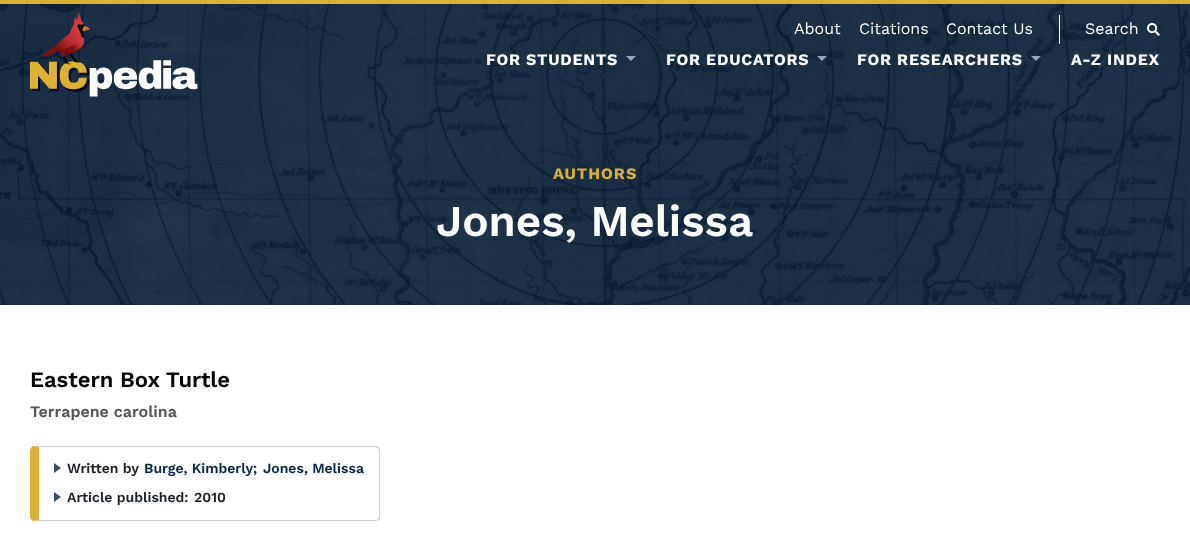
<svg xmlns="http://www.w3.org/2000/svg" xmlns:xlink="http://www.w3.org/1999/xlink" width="1190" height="546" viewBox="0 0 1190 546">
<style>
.cls-1{font:16px Work Sans;fill:#ffffff}
.cls-2{font:bold 16px Work Sans;letter-spacing:0.75px;fill:#ffffff}
.cls-3{font:bold 16px Work Sans;letter-spacing:1px;fill:#ddb133}
.cls-4{font:600 44px Work Sans;fill:#ffffff}
.cls-5{font:600 22px Work Sans;fill:#000000}
.cls-6{font:600 16px Work Sans;fill:#555555}
.cls-7{font:600 14px Work Sans;fill:#1c2024}
.cls-8{font:600 14px Work Sans;fill:#072447}
</style>
<rect width="100%" height="100%" fill="#ffffff"/>
<rect fill="#ddb133" x="0" y="0" width="1190" height="4"/>
<image xlink:href="image2.png" x="0" y="4" width="1190" height="301"/>
<image xlink:href="image0.png" x="30" y="12" width="168" height="85"/>
<rect fill="#ffffff" x="1059" y="15" width="1" height="29"/>
<image xlink:href="image1.png" x="1147" y="23" width="13" height="13"/>
<path fill="#9ca7b5" d="M626 56H636L631 61Z"/>
<path fill="#9ca7b5" d="M817 56H827L822 61Z"/>
<path fill="#9ca7b5" d="M1031 56H1041L1036 61Z"/>
<path fill="#cccccc" d="M35 446H33L39 447H375C376 447 377 448 378 448L379 447C378 446 376 446 375 446Z"/>
<path fill="#cccccc" d="M380 516V451C380 450 380 448 379 447L378 448L379 451V516L378 519L379 520C380 519 380 518 380 516Z"/>
<path fill="#cccccc" d="M35 521H375C376 521 378 520 379 520L378 519C377 520 376 520 375 520H39L33 521Z"/>
<path fill="#ddb133" d="M39 447L33 446C31 447 30 449 30 451V516C30 518 31 520 33 521L39 520Z"/>
<path fill="#3a4c62" d="M54 473V463L61 468Z"/>
<path fill="#3a4c62" d="M54 502V492L61 497Z"/>
<text class="cls-1" x="794" y="34">About</text>
<text class="cls-1" x="859" y="34">Citations</text>
<text class="cls-1" x="946" y="34">Contact Us</text>
<text class="cls-1" x="1085" y="34">Search</text>
<text class="cls-2" x="486" y="65">FOR STUDENTS</text>
<text class="cls-2" x="666" y="65">FOR EDUCATORS</text>
<text class="cls-2" x="857" y="65">FOR RESEARCHERS</text>
<text class="cls-2" x="1071" y="65">A-Z INDEX</text>
<text class="cls-3" x="553" y="179">AUTHORS</text>
<text class="cls-4" x="436" y="236">Jones, Melissa</text>
<text class="cls-5" x="30" y="387">Eastern Box Turtle</text>
<text class="cls-6" x="30" y="417">Terrapene carolina</text>
<text class="cls-7" x="67" y="473">Written by</text>
<text class="cls-8" x="144" y="473">Burge, Kimberly;</text>
<text class="cls-8" x="263" y="473">Jones, Melissa</text>
<text class="cls-7" x="67" y="502">Article published:</text>
<text class="cls-7" x="194" y="502">2010</text>
</svg>
